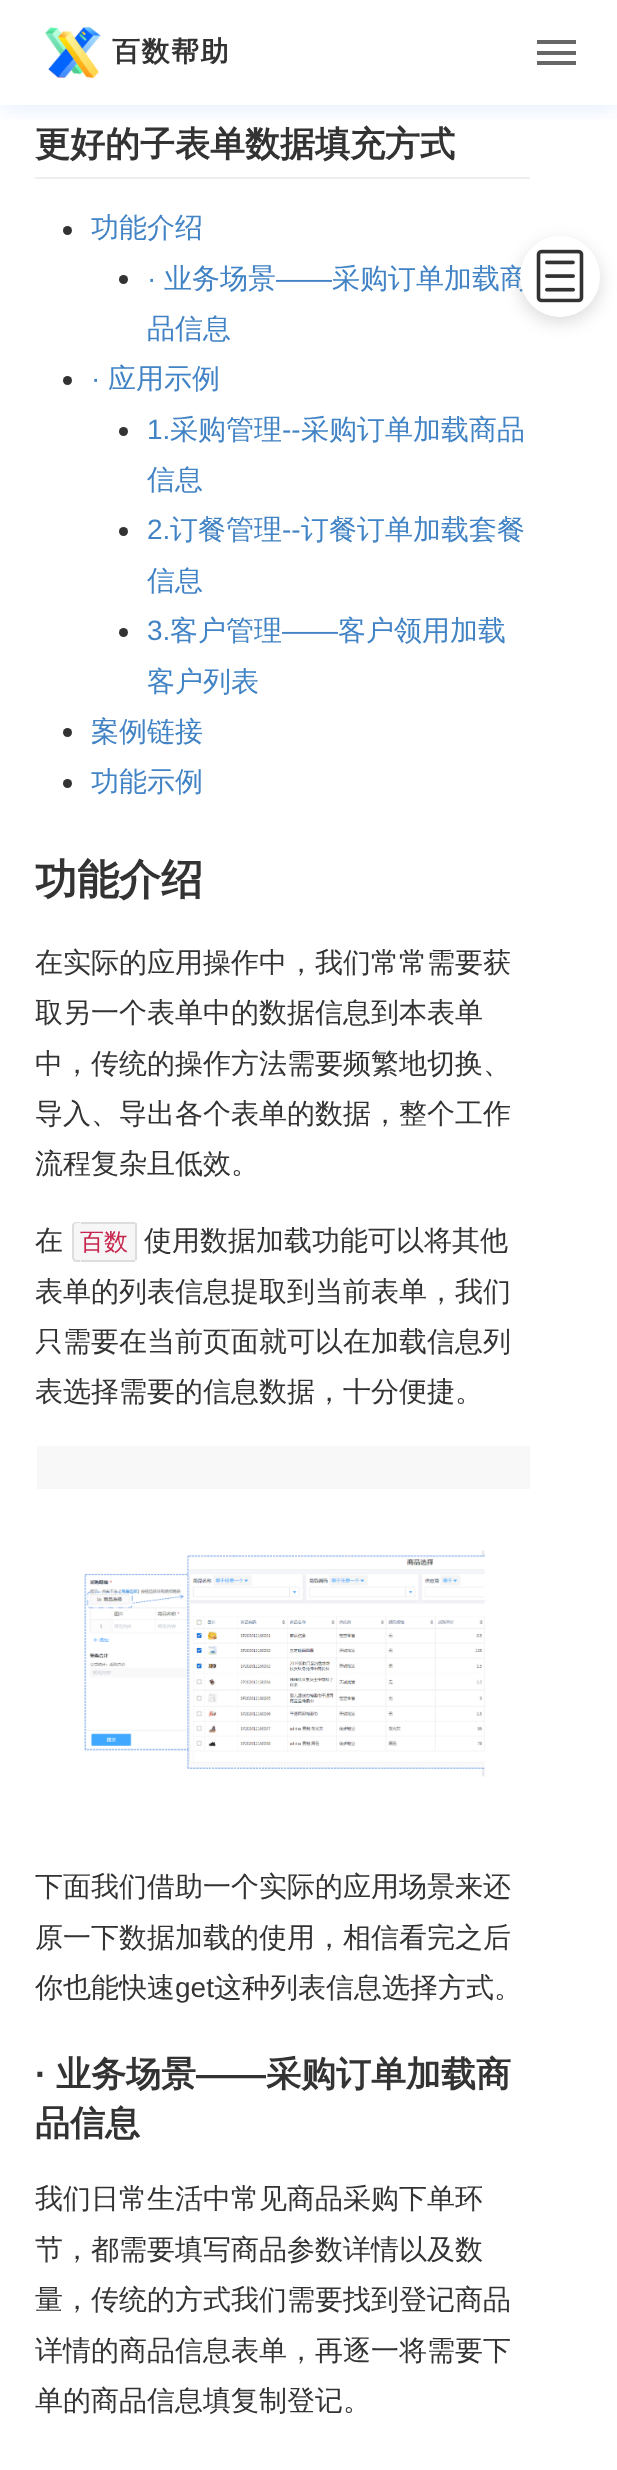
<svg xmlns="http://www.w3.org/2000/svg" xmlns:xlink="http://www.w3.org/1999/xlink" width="617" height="2470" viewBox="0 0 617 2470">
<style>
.cls-1{font:bold 28px WenQuanYi Zen Hei;letter-spacing:1.5px;fill:#333333}
.cls-2{font:bold 35px WenQuanYi Zen Hei;fill:#333333}
.cls-3{font:500 28px WenQuanYi Zen Hei;fill:#4183c4}
.cls-4{font:28px Liberation Sans;fill:#4183c4}
.cls-5{font:bold 42px WenQuanYi Zen Hei;fill:#333333}
.cls-6{font:500 28px WenQuanYi Zen Hei;fill:#333333}
.cls-7{font:500 24px WenQuanYi Zen Hei;fill:#c7254e}
.cls-8{font:28px Liberation Sans;fill:#333333}
.cls-9{font:bold 35px Liberation Sans;fill:#333333}
</style>
<defs>
<clipPath id="clip1"><rect x="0" y="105" width="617" height="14"/></clipPath>
</defs>
<rect width="100%" height="100%" fill="#ffffff"/>
<g clip-path="url(#clip1)">
<rect fill="#0265ff" fill-opacity="0.1" filter="blur(12px)" x="0" y="4" width="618" height="105"/>
</g>
<image xlink:href="image0.png" x="45" y="27" width="56" height="51"/>
<rect fill="#666666" x="537" y="40" width="39" height="4"/>
<rect fill="#666666" x="537" y="51" width="39" height="4"/>
<rect fill="#666666" x="537" y="61" width="39" height="4"/>
<rect fill="#eeeeee" x="35" y="177" width="495" height="2"/>
<circle fill="#333333" cx="67.5" cy="230.5" r="4.5"/>
<circle fill="#333333" cx="123.5" cy="279.5" r="4.5"/>
<circle fill="#333333" cx="67.5" cy="380.5" r="4.5"/>
<circle fill="#333333" cx="123.5" cy="431.5" r="4.5"/>
<circle fill="#333333" cx="123.5" cy="531.5" r="4.5"/>
<circle fill="#333333" cx="123.5" cy="632.5" r="4.5"/>
<circle fill="#333333" cx="67.5" cy="732.5" r="4.5"/>
<circle fill="#333333" cx="67.5" cy="783.5" r="4.5"/>
<path fill="#f6f6f6" d="M76.5 1222H81V1262H76.5C74 1262 72 1260 72 1257.5V1226.5C72 1224 74 1222 76.5 1222Z"/>
<path fill="#dddddd" fill-rule="evenodd" d="M76 1222H80V1262H76C74 1262 72 1260 72 1257V1226C72 1223 74 1222 76 1222ZM76 1223H80V1260H76C75 1260 74 1259 74 1257V1226C74 1224 75 1223 76 1223Z"/>
<rect fill="#f6f6f6" x="81" y="1224" width="49" height="36"/>
<rect fill="#dddddd" x="81" y="1222" width="49" height="2"/>
<rect fill="#dddddd" x="81" y="1260" width="49" height="2"/>
<path fill="#f6f6f6" d="M130 1222H133.5C135.5 1222 137 1223.5 137 1225.5V1258.5C137 1260.5 135.5 1262 133.5 1262H130Z"/>
<rect fill="#dddddd" x="130" y="1222" width="5" height="2"/>
<rect fill="#dddddd" x="135" y="1223" width="2" height="37"/>
<rect fill="#dddddd" x="130" y="1260" width="5" height="2"/>
<rect fill="#f8f8f8" x="37" y="1446" width="493" height="43"/>
<image xlink:href="image1.png" x="84" y="1550" width="401" height="227"/>
<rect fill="#000000" fill-opacity="0.15" filter="blur(9px)" x="520" y="242" width="80" height="80" rx="40"/>
<text class="cls-1" x="112" y="61">百数帮助</text>
<text class="cls-2" x="35" y="156">更好的子表单数据填充方式</text>
<text class="cls-3" x="91" y="237">功能介绍</text>
<text class="cls-4" x="147" y="288">·</text>
<text class="cls-3" x="164" y="288">业务场景</text>
<text class="cls-4" x="276" y="288">——</text>
<text class="cls-3" x="332" y="288">采购订单加载商</text>
<text class="cls-3" x="147" y="338">品信息</text>
<text class="cls-4" x="91" y="388">·</text>
<text class="cls-3" x="108" y="388">应用示例</text>
<text class="cls-4" x="147" y="439">1.</text>
<text class="cls-3" x="170" y="439">采购管理</text>
<text class="cls-4" x="282" y="439">--</text>
<text class="cls-3" x="301" y="439">采购订单加载商品</text>
<text class="cls-3" x="147" y="489">信息</text>
<text class="cls-4" x="147" y="539">2.</text>
<text class="cls-3" x="170" y="539">订餐管理</text>
<text class="cls-4" x="282" y="539">--</text>
<text class="cls-3" x="301" y="539">订餐订单加载套餐</text>
<text class="cls-3" x="147" y="590">信息</text>
<text class="cls-4" x="147" y="640">3.</text>
<text class="cls-3" x="170" y="640">客户管理</text>
<text class="cls-4" x="282" y="640">——</text>
<text class="cls-3" x="338" y="640">客户领用加载</text>
<text class="cls-3" x="147" y="691">客户列表</text>
<text class="cls-3"><tspan x="91" y="741">案例链接</tspan><tspan x="91" y="791">功能示例</tspan></text>
<text class="cls-5" x="35" y="894">功能介绍</text>
<text class="cls-6"><tspan x="35" y="972">在实际的应用操作中，我们常常需要获</tspan><tspan x="35" y="1022">取另一个表单中的数据信息到本表单</tspan><tspan x="35" y="1073">中，传统的操作方法需要频繁地切换、</tspan><tspan x="35" y="1123">导入、导出各个表单的数据，整个工作</tspan><tspan x="35" y="1173">流程复杂且低效。</tspan></text>
<text class="cls-6" x="35" y="1250">在</text>
<text class="cls-7" x="80" y="1250">百数</text>
<text class="cls-6" x="144" y="1250">使用数据加载功能可以将其他</text>
<text class="cls-6"><tspan x="35" y="1301">表单的列表信息提取到当前表单，我们</tspan><tspan x="35" y="1351">只需要在当前页面就可以在加载信息列</tspan><tspan x="35" y="1401">表选择需要的信息数据，十分便捷。</tspan></text>
<text class="cls-6"><tspan x="35" y="1896">下面我们借助一个实际的应用场景来还</tspan><tspan x="35" y="1947">原一下数据加载的使用，相信看完之后</tspan><tspan x="35" y="1997">你也能快速</tspan></text>
<text class="cls-8" x="175" y="1997">get</text>
<text class="cls-6" x="214" y="1997">这种列表信息选择方式。</text>
<text class="cls-9" x="35" y="2086">·</text>
<text class="cls-2" x="56" y="2086">业务场景</text>
<text class="cls-9" x="196" y="2086">——</text>
<text class="cls-2" x="266" y="2086">采购订单加载商</text>
<text class="cls-2" x="35" y="2135">品信息</text>
<text class="cls-6"><tspan x="35" y="2208">我们日常生活中常见商品采购下单环</tspan><tspan x="35" y="2259">节，都需要填写商品参数详情以及数</tspan><tspan x="35" y="2309">量，传统的方式我们需要找到登记商品</tspan><tspan x="35" y="2360">详情的商品信息表单，再逐一将需要下</tspan><tspan x="35" y="2410">单的商品信息填复制登记。</tspan></text>
<rect fill="#ffffff" x="520" y="236" width="80" height="81" rx="40"/>
<image xlink:href="image2.png" x="536" y="249" width="48" height="54"/>
</svg>
